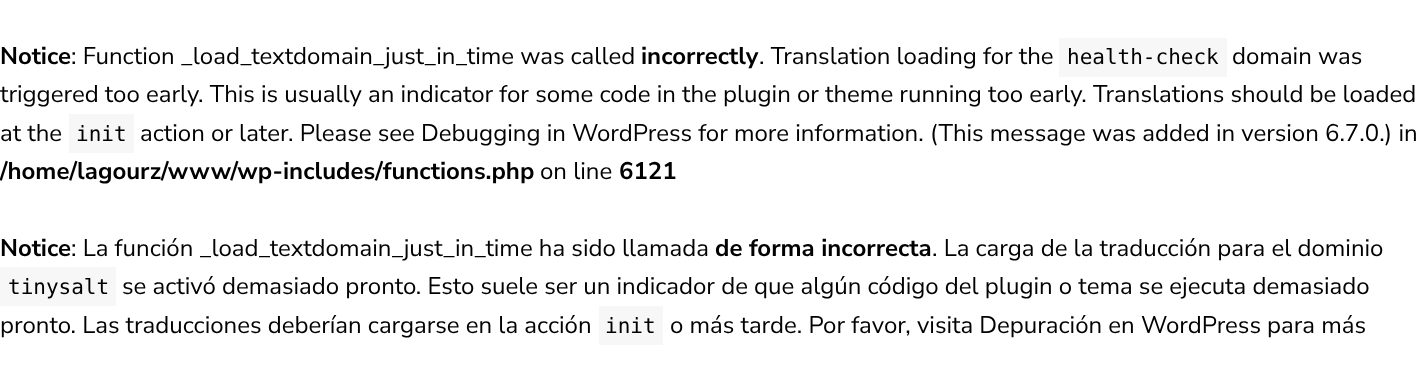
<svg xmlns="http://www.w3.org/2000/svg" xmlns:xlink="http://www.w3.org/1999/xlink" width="1424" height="365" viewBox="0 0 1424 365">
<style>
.cls-1{font:bold 24px Nunito Sans;fill:#000000}
.cls-2{font:24px Nunito Sans;fill:#000000}
.cls-3{font:21px DejaVu Sans Mono;fill:#000000}
</style>
<rect width="100%" height="100%" fill="#ffffff"/>
<rect fill="#f7f7f7" x="1059" y="38" width="168" height="39"/>
<rect fill="#f7f7f7" x="69" y="114" width="65" height="39"/>
<rect fill="#f7f7f7" x="0" y="267" width="116" height="39"/>
<rect fill="#f7f7f7" x="599" y="306" width="64" height="39"/>
<text class="cls-1" x="0" y="64">Notice</text>
<text class="cls-2" x="71" y="64">: Function _load_textdomain_just_in_time was called</text>
<text class="cls-1" x="641" y="64">incorrectly</text>
<text class="cls-2" x="759" y="64">. Translation loading for the</text>
<text class="cls-3" x="1067" y="64">health-check</text>
<text class="cls-2" x="1232" y="64">domain was</text>
<text class="cls-2"><tspan x="0" y="102">triggered too early. This is usually an indicator for some code in the plugin or theme running too early. Translations should be loaded</tspan><tspan x="0" y="141">at the</tspan></text>
<text class="cls-3" x="76" y="141">init</text>
<text class="cls-2" x="140" y="141">action or later. Please see Debugging in WordPress for more information. (This message was added in version 6.7.0.) in</text>
<text class="cls-1" x="0" y="179">/home/lagourz/www/wp-includes/functions.php</text>
<text class="cls-2" x="540" y="179">on line</text>
<text class="cls-1" x="619" y="179">6121</text>
<text class="cls-1" x="0" y="256">Notice</text>
<text class="cls-2" x="71" y="256">: La función _load_textdomain_just_in_time ha sido llamada</text>
<text class="cls-1" x="715" y="256">de forma incorrecta</text>
<text class="cls-2" x="932" y="256">. La carga de la traducción para el dominio</text>
<text class="cls-3" x="8" y="294">tinysalt</text>
<text class="cls-2" x="122" y="294">se activó demasiado pronto. Esto suele ser un indicador de que algún código del plugin o tema se ejecuta demasiado</text>
<text class="cls-2" x="0" y="333">pronto. Las traducciones deberían cargarse en la acción</text>
<text class="cls-3" x="605" y="333">init</text>
<text class="cls-2" x="670" y="333">o más tarde. Por favor, visita Depuración en WordPress para más</text>
</svg>
